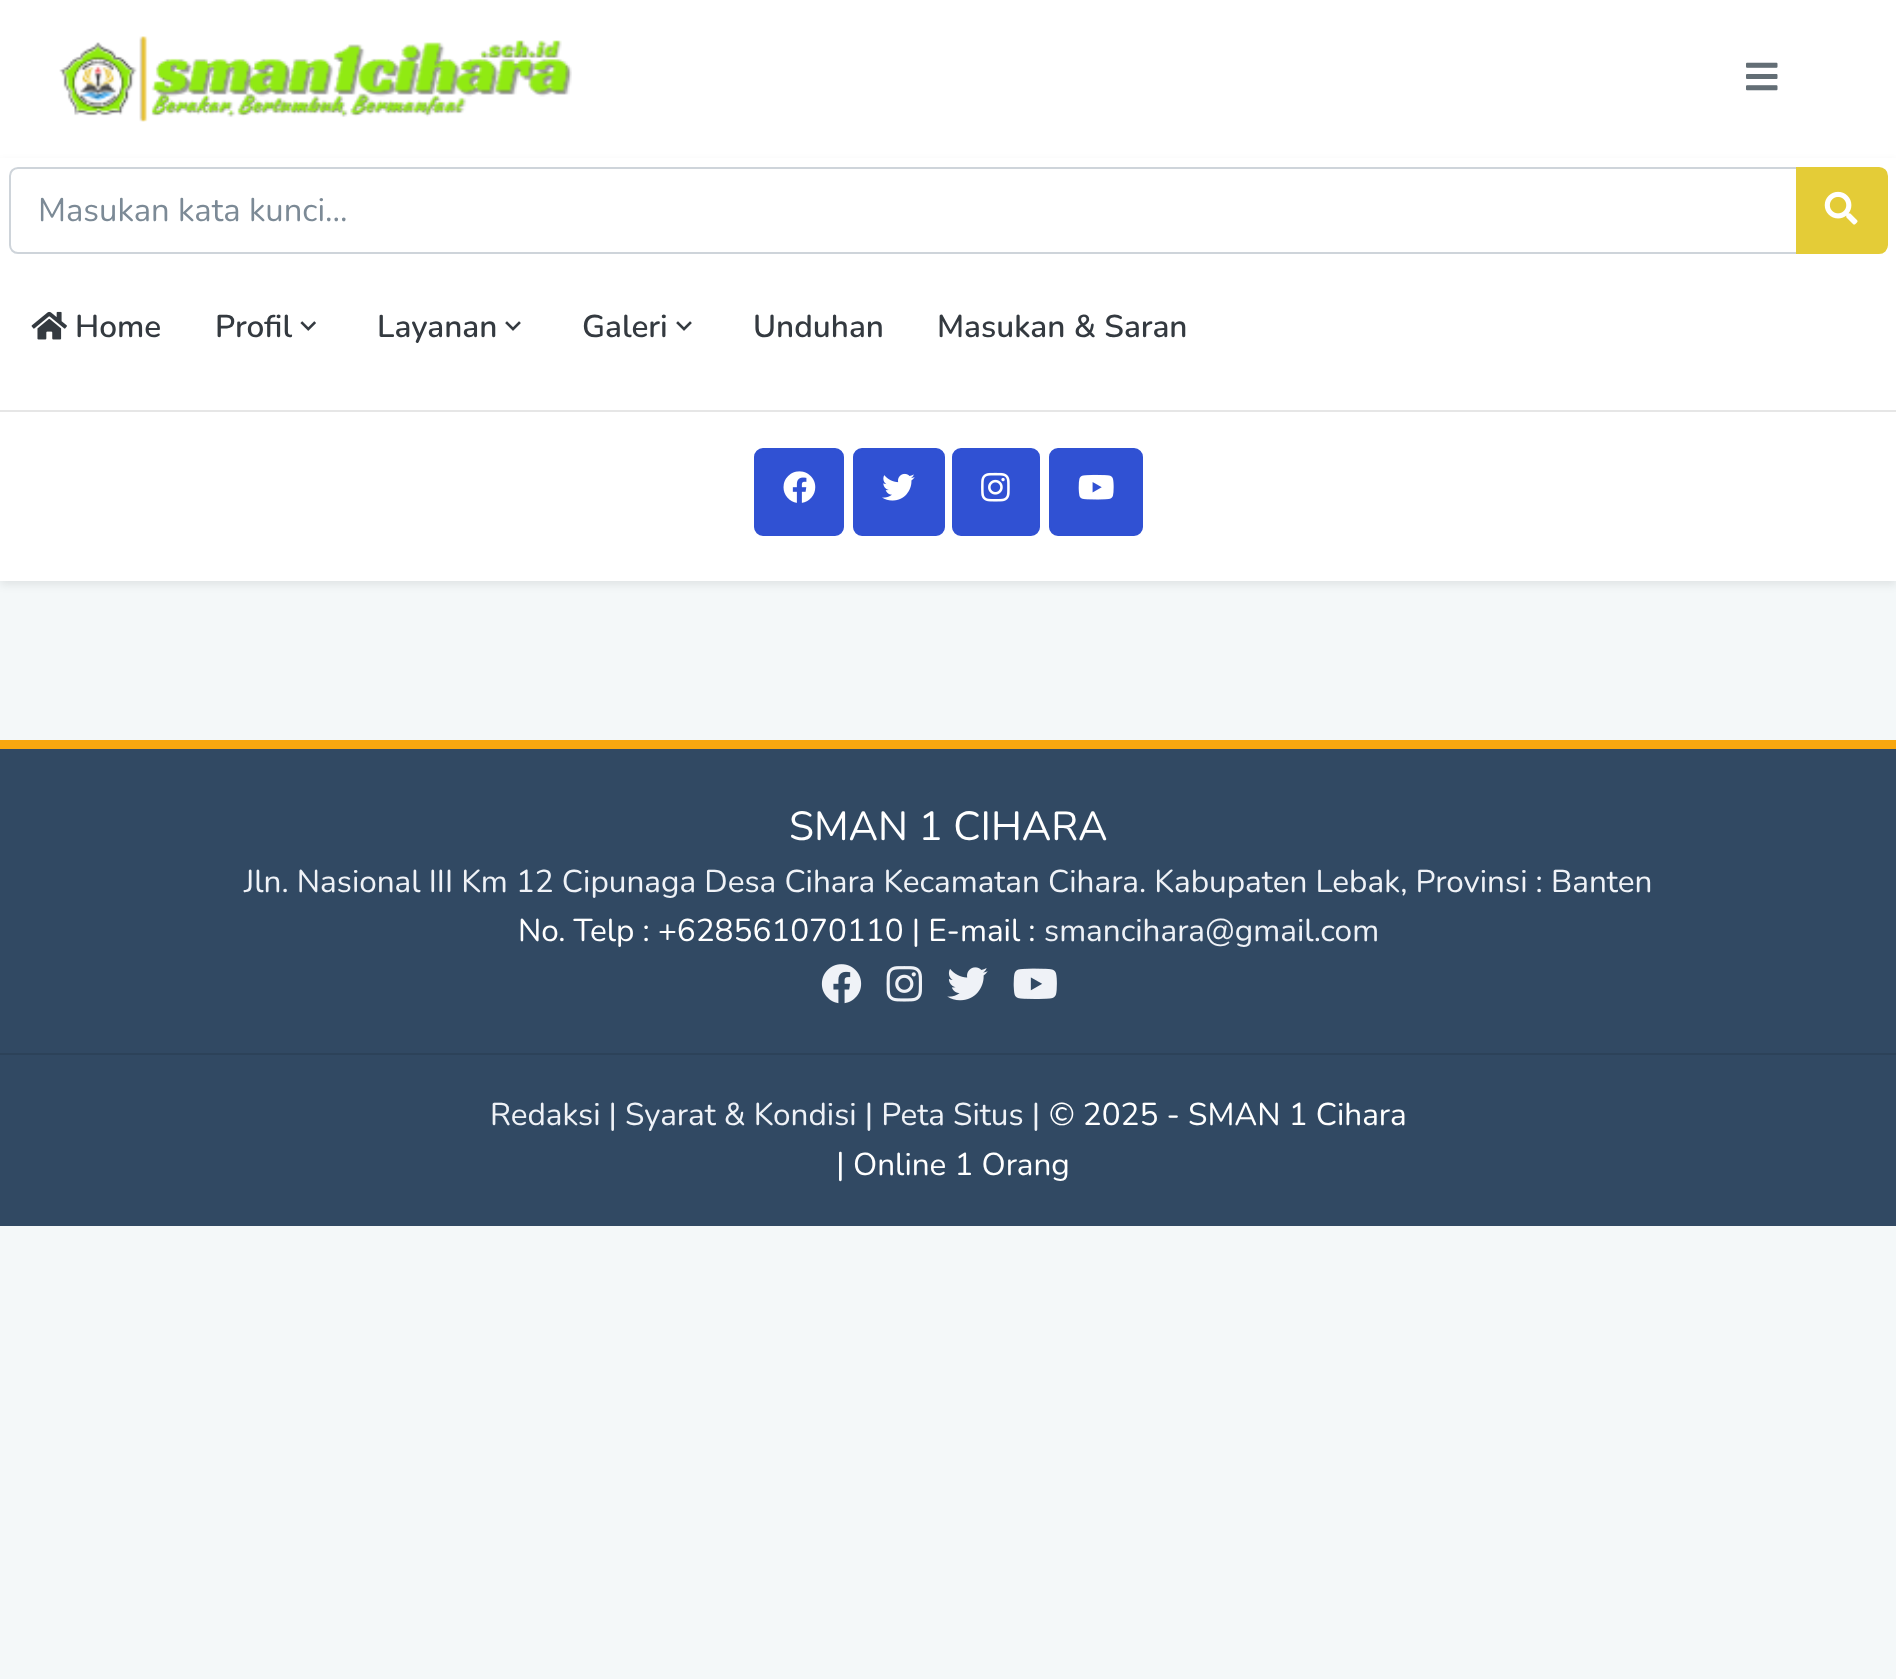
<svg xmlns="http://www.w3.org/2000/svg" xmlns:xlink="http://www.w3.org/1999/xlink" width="1896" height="1679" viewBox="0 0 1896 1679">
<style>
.cls-1{font:32.75px Nunito;fill:#7c8a96}
.cls-2{font:600 31.5px Nunito;fill:#343a40}
.cls-3{font:40.5px Nunito;fill:#ffffff}
.cls-4{font:31.5px Nunito;fill:#eff2f7}
.cls-5{font:31.5px Nunito;fill:#ffffff}
.cls-6{font:32.75px Nunito;fill:#ffffff}
</style>
<rect width="100%" height="100%" fill="#f4f8f9"/>
<rect fill="#ffffff" x="0" y="0" width="1896" height="158"/>
<image xlink:href="image0.png" x="59" y="36" width="513" height="86"/>
<image xlink:href="image1.png" x="1746" y="62" width="32" height="29"/>
<rect fill="#000000" fill-opacity="0.08" filter="blur(4.5px)" x="0" y="162" width="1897" height="423"/>
<rect fill="#ffffff" x="0" y="158" width="1896" height="423"/>
<path fill="none" stroke="#ced4da" stroke-width="2" d="M18 168H1797V253H18C13.5 253 10 249.5 10 245V176C10 171.5 13.5 168 18 168Z"/>
<path fill="#e4cc37" stroke="#e4cc37" stroke-width="2" d="M1797 168H1879C1883.5 168 1887 171.5 1887 176V245C1887 249.5 1883.5 253 1879 253H1797Z"/>
<image xlink:href="image2.png" x="1824" y="191" width="34" height="34"/>
<image xlink:href="image3.png" x="31" y="311" width="36" height="29"/>
<image xlink:href="image4.png" x="300" y="321" width="16" height="10"/>
<image xlink:href="image5.png" x="505" y="321" width="16" height="10"/>
<image xlink:href="image5.png" x="676" y="321" width="16" height="10"/>
<rect fill="#e6e6e6" x="0" y="410" width="1896" height="2"/>
<rect fill="#3051d3" stroke="#3051d3" stroke-width="2" x="755" y="449" width="88" height="86" rx="8"/>
<image xlink:href="image6.png" x="783" y="471" width="33" height="32"/>
<rect fill="#3051d3" stroke="#3051d3" stroke-width="2" x="854" y="449" width="90" height="86" rx="8"/>
<image xlink:href="image7.png" x="882" y="473" width="33" height="28"/>
<rect fill="#3051d3" stroke="#3051d3" stroke-width="2" x="953" y="449" width="86" height="86" rx="8"/>
<image xlink:href="image8.png" x="981" y="472" width="29" height="30"/>
<rect fill="#3051d3" stroke="#3051d3" stroke-width="2" x="1050" y="449" width="92" height="86" rx="8"/>
<image xlink:href="image9.png" x="1078" y="474" width="36" height="26"/>
<rect fill="#314963" x="0" y="749" width="1896" height="477"/>
<rect fill="#f8a70f" x="0" y="740" width="1896" height="9"/>
<image xlink:href="image10.png" x="821" y="964" width="41" height="40"/>
<image xlink:href="image11.png" x="886" y="966" width="36" height="36"/>
<image xlink:href="image12.png" x="947" y="967" width="41" height="34"/>
<image xlink:href="image13.png" x="1013" y="968" width="44" height="31"/>
<rect fill="#2c4259" x="0" y="1053" width="1896" height="2"/>
<text class="cls-1" x="38" y="221">Masukan kata kunci...</text>
<text class="cls-2" x="75" y="337">Home</text>
<text class="cls-2" x="215" y="337">Profil</text>
<text class="cls-2" x="377" y="337">Layanan</text>
<text class="cls-2" x="582" y="337">Galeri</text>
<text class="cls-2" x="753" y="337">Unduhan</text>
<text class="cls-2" x="937" y="337">Masukan &amp; Saran</text>
<text class="cls-3" x="789" y="840">SMAN 1 CIHARA</text>
<text class="cls-4" x="244" y="892">Jln. Nasional III Km 12 Cipunaga Desa Cihara Kecamatan Cihara. Kabupaten Lebak, Provinsi : Banten</text>
<text class="cls-5" x="518" y="941">No. Telp : +628561070110 | E-mail :</text>
<text class="cls-4" x="1044" y="941">smancihara@gmail.com</text>
<text class="cls-4" x="490" y="1125">Redaksi | Syarat &amp; Kondisi | Peta Situs |</text>
<text class="cls-5" x="1049" y="1125">© 2025 - SMAN 1 Cihara</text>
<text class="cls-6" x="836" y="1175">|</text>
<text class="cls-5" x="853" y="1175">Online 1 Orang</text>
</svg>
